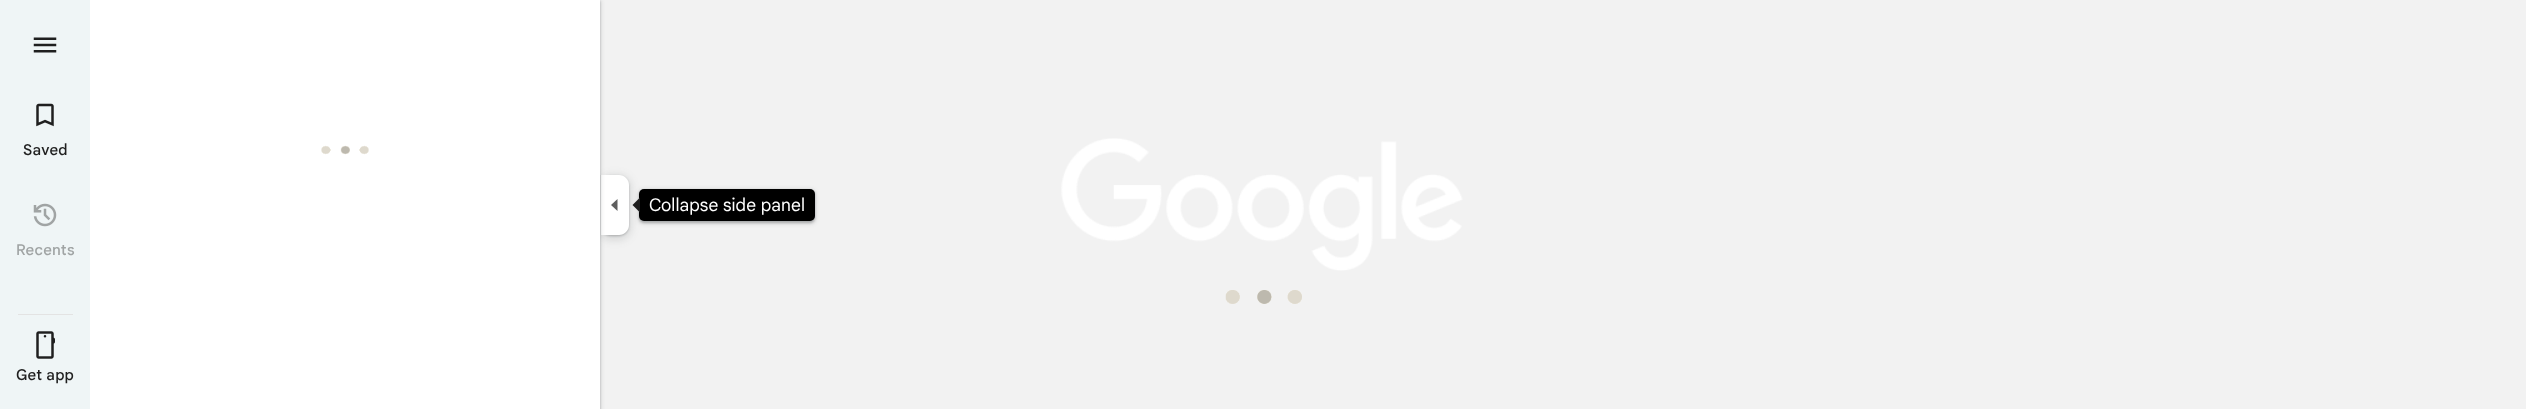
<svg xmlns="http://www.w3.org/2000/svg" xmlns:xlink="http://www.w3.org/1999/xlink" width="2526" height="409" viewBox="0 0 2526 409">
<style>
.cls-1{font:500 15px Google Sans;letter-spacing:0.25px;fill:#1f1f1f}
.cls-2{font:500 15px Google Sans;letter-spacing:0.25px;fill:#a0a4a4}
.cls-3{font:17.5px Google Sans;letter-spacing:0.1px;fill:#ffffff}
</style>
<rect width="100%" height="100%" fill="#f2f2f2"/>
<rect fill="#3c4043" fill-opacity="0.15" filter="blur(4px)" x="598" y="175" width="33" height="65" rx="13"/>
<rect fill="#3c4043" fill-opacity="0.3" filter="blur(1px)" x="600" y="176" width="29" height="60" rx="10"/>
<path fill="#ffffff" d="M600 175H619C624.5 175 629 179.5 629 185V225C629 230.5 624.5 235 619 235H600Z"/>
<rect fill="#e3e3e3" x="600" y="175" width="1" height="60"/>
<rect fill="#3c4043" fill-opacity="0.15" filter="blur(2px)" x="89" y="0" width="512" height="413"/>
<rect fill="#3c4043" fill-opacity="0.3" filter="blur(1px)" x="90" y="1" width="510" height="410"/>
<rect fill="#eff5f6" x="0" y="0" width="90" height="409"/>
<image xlink:href="image0.png" x="33" y="37" width="24" height="16"/>
<image xlink:href="image1.png" x="36" y="103" width="18" height="24"/>
<image xlink:href="image2.png" x="33" y="203" width="24" height="24"/>
<rect fill="#e3e3e3" x="18" y="314" width="55" height="1"/>
<image xlink:href="image3.png" x="36" y="331" width="19" height="28"/>
<rect fill="#ffffff" x="90" y="0" width="510" height="409"/>
<image xlink:href="image4.png" x="321" y="145" width="48" height="10"/>
<path fill="#5e5e5e" d="M617.5 211L611 205L617.5 199Z"/>
<rect fill="#3c4043" fill-opacity="0.15" filter="blur(2px)" x="638" y="189" width="178" height="35" rx="6"/>
<rect fill="#3c4043" fill-opacity="0.3" filter="blur(1px)" x="639" y="190" width="176" height="33" rx="5"/>
<rect fill="#000000" x="639" y="189" width="176" height="32" rx="5"/>
<path fill="#1f1f1f" d="M640 197.5V212.5L632.5 205Z"/>
<image xlink:href="image5.png" x="1061" y="138" width="402" height="133"/>
<image xlink:href="image6.png" x="1225" y="290" width="77" height="14"/>
<text class="cls-1" x="23" y="155">Saved</text>
<text class="cls-2" x="16" y="255">Recents</text>
<text class="cls-1" x="16" y="380">Get app</text>
<text class="cls-3" x="649" y="211">Collapse side panel</text>
</svg>
